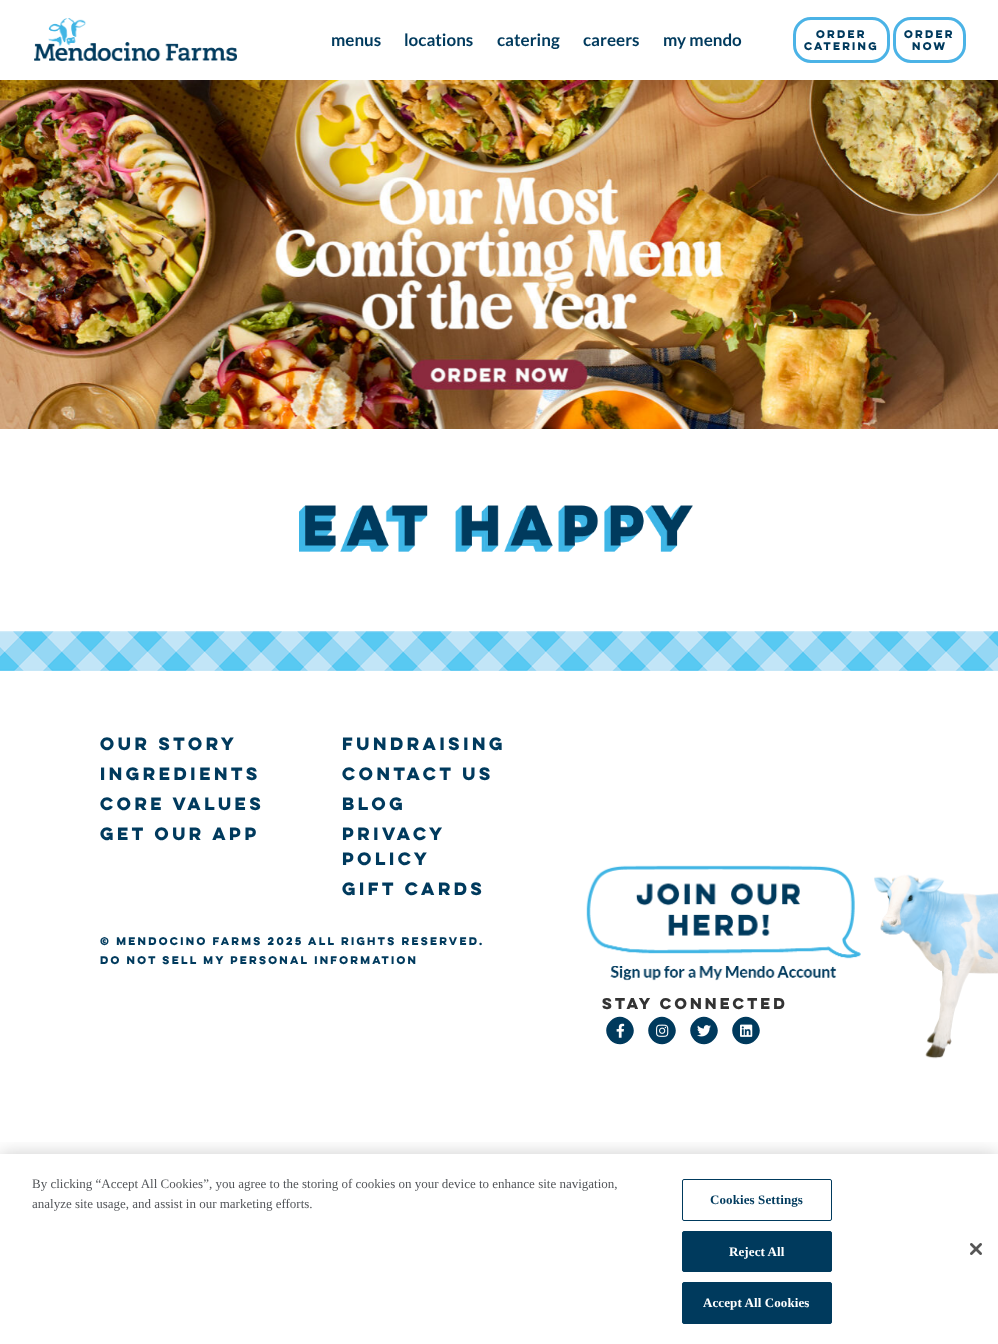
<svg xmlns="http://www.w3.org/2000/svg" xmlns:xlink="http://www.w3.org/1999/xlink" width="998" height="1344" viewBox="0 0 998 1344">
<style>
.cls-1{font:bold 17px Lato;fill:#003a5d}
.cls-2{font:bold 10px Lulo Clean;fill:#003a5d}
.cls-3{font:bold 16px Lulo Clean;fill:#003a5d}
.cls-4{font:bold 14px Lulo Clean;fill:#333333}
.cls-5{font:13px Liberation Serif;fill:#53565a}
.cls-6{font:bold 13px Liberation Serif;letter-spacing:0.1px;fill:#003a5d}
.cls-7{font:bold 13px Liberation Serif;letter-spacing:0.1px;fill:#ffffff}
</style>
<defs>
<clipPath id="clip1"><rect x="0" y="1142" width="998" height="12"/></clipPath>
</defs>
<rect width="100%" height="100%" fill="#ffffff"/>
<image xlink:href="image0.png" x="34" y="18" width="203" height="43"/>
<rect fill="none" stroke="#4bb3e6" stroke-width="3" x="794.5" y="18.5" width="94" height="43" rx="16.5"/>
<rect fill="none" stroke="#4bb3e6" stroke-width="3" x="894.5" y="18.5" width="70" height="43" rx="16.5"/>
<image xlink:href="image1.png" x="0" y="80" width="998" height="349"/>
<image xlink:href="image2.png" x="299" y="505" width="394" height="47"/>
<image xlink:href="image3.png" x="0" y="631" width="998" height="40"/>
<image xlink:href="image4.png" x="586" y="865" width="412" height="194"/>
<path fill="#003a5d" d="M610.5 1021C623 1008 642.5 1027.5 629.5 1040C617 1053 597.5 1033.5 610.5 1021Z"/>
<image xlink:href="image5.png" x="616" y="1023" width="9" height="15"/>
<path fill="#003a5d" d="M652.5 1021C665 1008 684.5 1027.5 671.5 1040C659 1053 639.5 1033.5 652.5 1021Z"/>
<image xlink:href="image6.png" x="656" y="1024" width="13" height="13"/>
<path fill="#003a5d" d="M694.5 1021C707 1008 726.5 1027.5 713.5 1040C701 1053 681.5 1033.5 694.5 1021Z"/>
<image xlink:href="image7.png" x="697" y="1025" width="14" height="12"/>
<path fill="#003a5d" d="M736.5 1021C749 1008 768.5 1027.5 755.5 1040C743 1053 723.5 1033.5 736.5 1021Z"/>
<image xlink:href="image8.png" x="740" y="1024" width="13" height="13"/>
<g clip-path="url(#clip1)">
<rect fill="#000000" fill-opacity="0.2" filter="blur(9px)" x="0" y="1154" width="998" height="190"/>
</g>
<rect fill="none" stroke="#003a5d" x="682.5" y="1179.5" width="149" height="41" rx="1.5"/>
<rect fill="#003a5d" stroke="#003a5d" x="682.5" y="1231.5" width="149" height="40" rx="1.5"/>
<rect fill="#003a5d" stroke="#003a5d" x="682.5" y="1282.5" width="149" height="41" rx="1.5"/>
<image xlink:href="image9.png" x="970" y="1243" width="12" height="12"/>
<text class="cls-1" x="331" y="46">menus</text>
<text class="cls-1" x="404" y="46">locations</text>
<text class="cls-1" x="497" y="46">catering</text>
<text class="cls-1" x="583" y="46">careers</text>
<text class="cls-1" x="663" y="46">my mendo</text>
<text class="cls-2" x="816" y="38">Order</text>
<text class="cls-2" x="804" y="50">Catering</text>
<text class="cls-2" x="904" y="38">Order</text>
<text class="cls-2" x="912" y="50">Now</text>
<text class="cls-3"><tspan x="100" y="750">OUR STORY</tspan><tspan x="100" y="780">INGREDIENTS</tspan><tspan x="100" y="810">CORE VALUES</tspan><tspan x="100" y="840">GET OUR APP</tspan></text>
<text class="cls-3"><tspan x="342" y="750">FUNDRAISING</tspan><tspan x="342" y="780">CONTACT US</tspan><tspan x="342" y="810">BLOG</tspan><tspan x="342" y="840">PRIVACY</tspan><tspan x="342" y="865">POLICY</tspan><tspan x="342" y="895">GIFT CARDS</tspan></text>
<text class="cls-2"><tspan x="100" y="945">© Mendocino Farms 2025 All Rights Reserved.</tspan><tspan x="100" y="964">DO NOT SELL MY PERSONAL INFORMATION</tspan></text>
<text class="cls-4" x="602" y="1009">Stay Connected</text>
<text class="cls-5"><tspan x="32" y="1188">By clicking “Accept All Cookies”, you agree to the storing of cookies on your device to enhance site navigation,</tspan><tspan x="32" y="1208">analyze site usage, and assist in our marketing efforts.</tspan></text>
<text class="cls-6" x="710" y="1204">Cookies Settings</text>
<text class="cls-7" x="729" y="1256">Reject All</text>
<text class="cls-7" x="703" y="1307">Accept All Cookies</text>
</svg>
